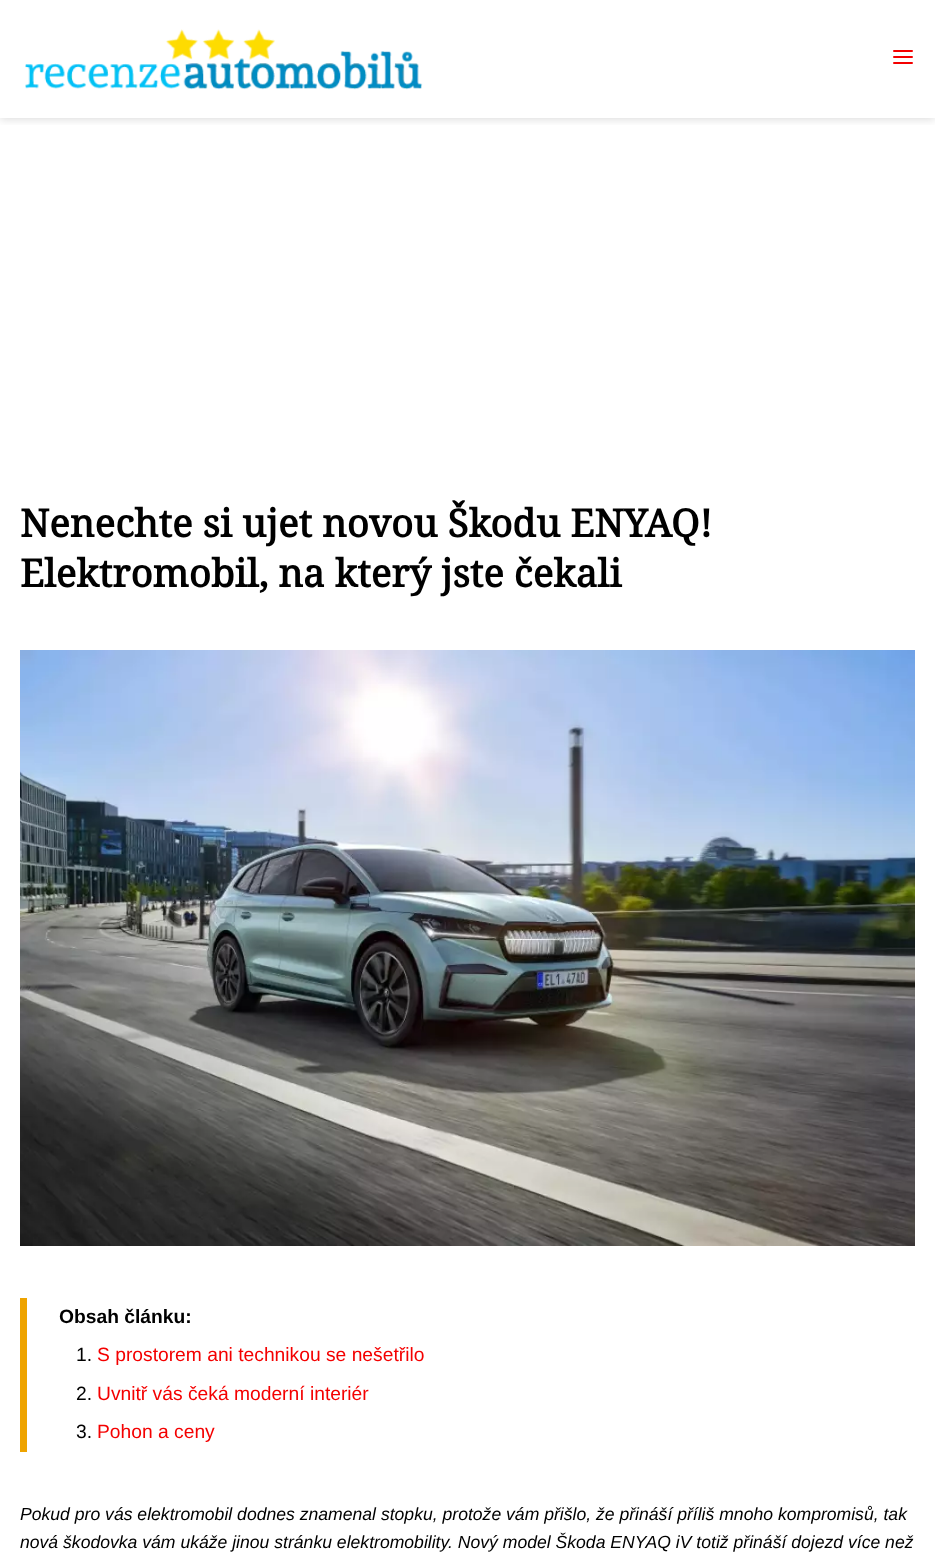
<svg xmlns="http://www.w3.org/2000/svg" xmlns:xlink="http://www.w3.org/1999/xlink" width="935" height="1559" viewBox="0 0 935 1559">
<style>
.cls-1{font:bold 38.4px Noto Serif;fill:#000000}
.cls-2{font:bold 19.25px Liberation Sans;fill:#000000}
.cls-3{font:19.25px Liberation Sans;fill:#000000}
.cls-4{font:19.25px Liberation Sans;fill:#f40000}
.cls-5{font:italic 17.6px Liberation Sans;fill:#000000}
</style>
<defs>
<clipPath id="clip1"><rect x="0" y="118" width="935" height="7"/></clipPath>
</defs>
<rect width="100%" height="100%" fill="#ffffff"/>
<g clip-path="url(#clip1)">
<rect fill="#000000" fill-opacity="0.15" filter="blur(5px)" x="0" y="1" width="935" height="118"/>
</g>
<image xlink:href="image0.png" x="25" y="29" width="398" height="61"/>
<path fill="none" stroke="#f40000" stroke-width="2" stroke-linecap="round" stroke-linejoin="round" d="M894 57H912M894 51H912M894 63H912"/>
<image xlink:href="image1.png" x="20" y="650" width="895" height="596"/>
<rect fill="#eea300" x="20" y="1298" width="7" height="154"/>
<text class="cls-1"><tspan x="20" y="537">Nenechte si ujet novou Škodu ENYAQ!</tspan><tspan x="20" y="587">Elektromobil, na který jste čekali</tspan></text>
<text class="cls-2" x="59" y="1323">Obsah článku:</text>
<text class="cls-3" x="76" y="1361">1.</text>
<text class="cls-4" x="97" y="1361">S prostorem ani technikou se nešetřilo</text>
<text class="cls-3" x="76" y="1400">2.</text>
<text class="cls-4" x="97" y="1400">Uvnitř vás čeká moderní interiér</text>
<text class="cls-3" x="76" y="1438">3.</text>
<text class="cls-4" x="97" y="1438">Pohon a ceny</text>
<text class="cls-5"><tspan x="20" y="1520">Pokud pro vás elektromobil dodnes znamenal stopku, protože vám přišlo, že přináší příliš mnoho kompromisů, tak</tspan><tspan x="20" y="1548">nová škodovka vám ukáže jinou stránku elektromobility. Nový model Škoda ENYAQ iV totiž přináší dojezd více než</tspan></text>
</svg>
